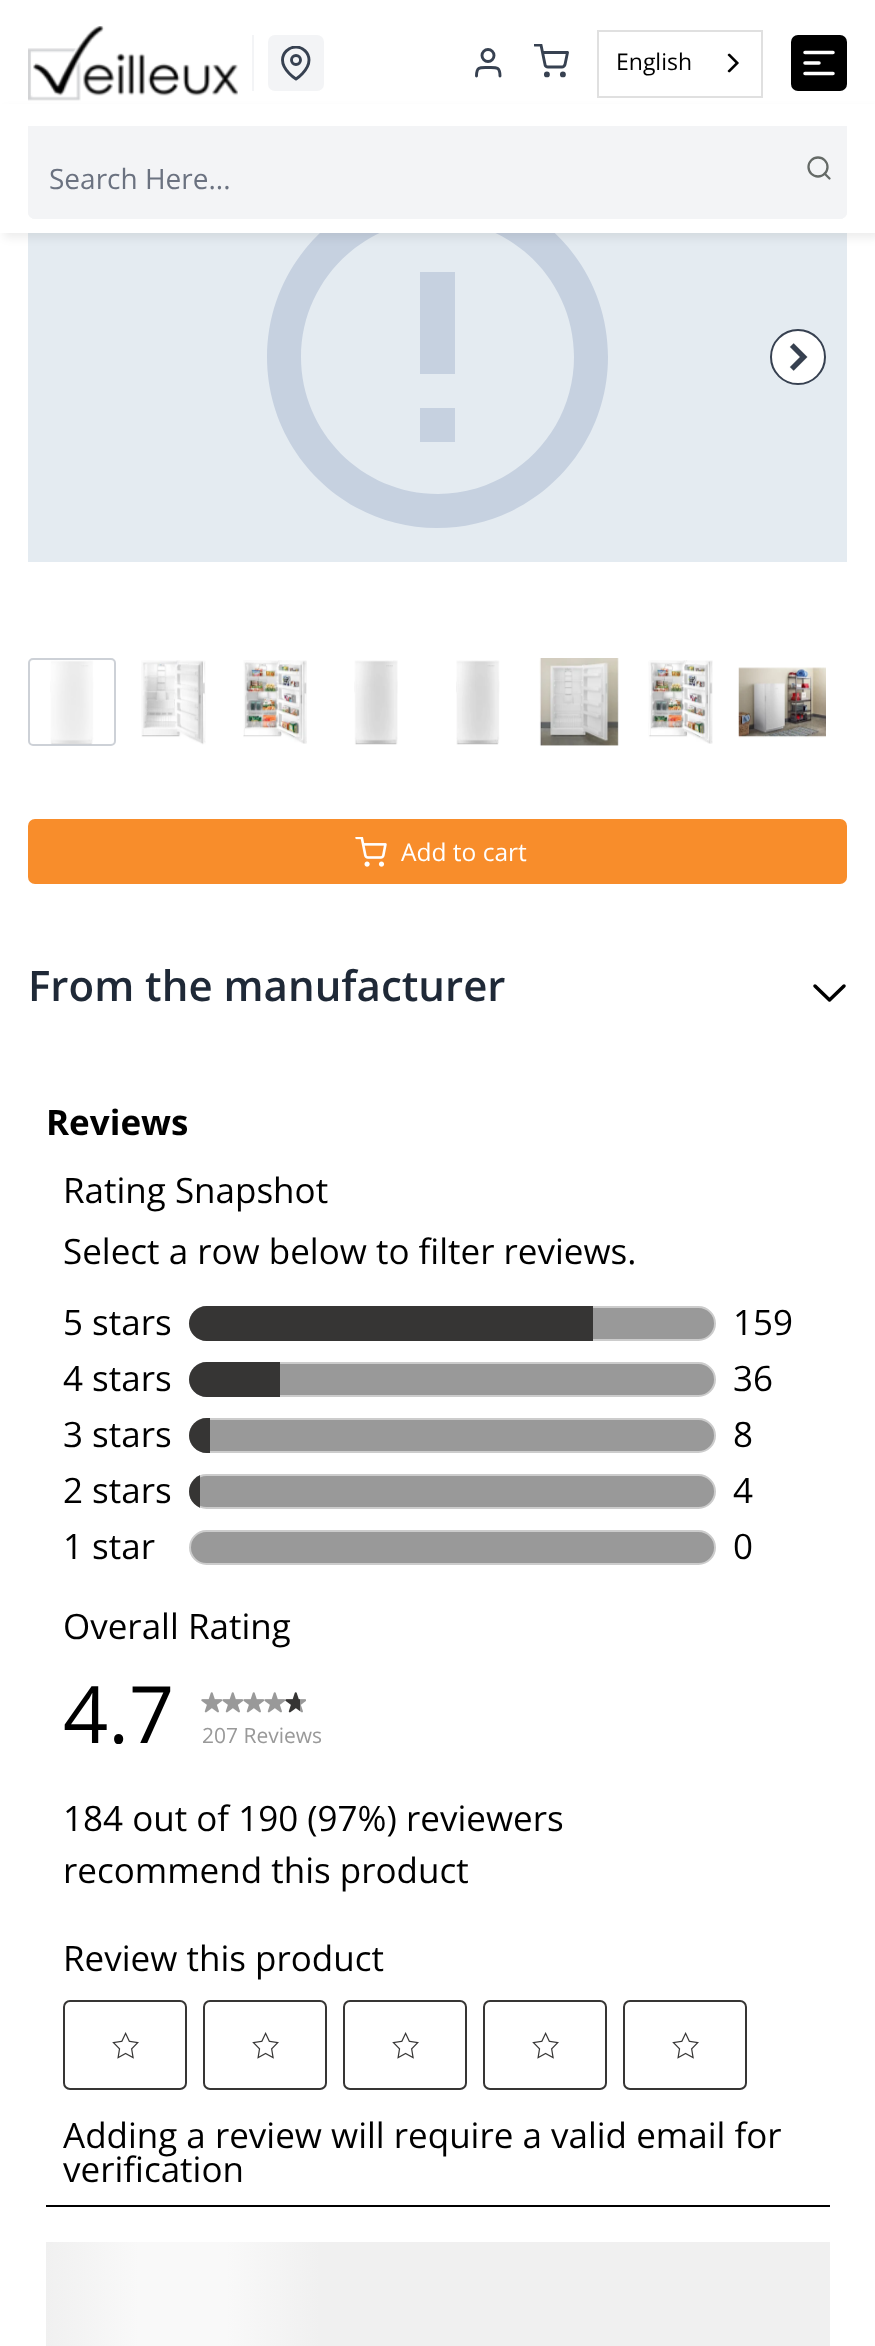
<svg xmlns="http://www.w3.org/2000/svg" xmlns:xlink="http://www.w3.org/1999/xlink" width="875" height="2346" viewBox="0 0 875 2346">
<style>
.cls-1{font:23px Open Sans;fill:#000000}
.cls-2{font:28px Open Sans;fill:#6b7280}
.cls-3{font:24.5px Open Sans;fill:#ffffff}
.cls-4{font:600 42px Open Sans;fill:#1f2937}
.cls-5{font:bold 35px Open Sans;fill:#000000}
.cls-6{font:35px Open Sans;fill:#000000}
.cls-7{font:79px Open Sans;fill:#000000}
.cls-8{font:21px Open Sans;fill:#999999}
</style>
<defs>
<clipPath id="clip1"><rect x="278" y="46" width="35" height="35"/></clipPath>
<clipPath id="clip2"><rect x="534" y="44" width="35" height="35"/></clipPath>
<clipPath id="clip3"><rect x="189" y="1474" width="527" height="35" rx="17.5"/></clipPath>
<linearGradient id="g1" gradientUnits="userSpaceOnUse" x1="45" y1="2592" x2="320" y2="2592"><stop offset="0" stop-color="#f0f0f0"/><stop offset="0.34" stop-color="#f9f9f9"/><stop offset="0.66" stop-color="#f9f9f9"/><stop offset="1" stop-color="#f0f0f0"/></linearGradient>
</defs>
<rect width="100%" height="100%" fill="#ffffff"/>
<rect fill="#e4ebf1" x="28" y="233" width="819" height="329"/>
<path fill="#c6d1e0" d="M420 408H455V442H420ZM420 272H455V374H420ZM437 186C343 186 267 263 267 357C267 451 343 528 437 528C532 528 608 451 608 357C608 263 532 186 437 186ZM438 494C362 494 301 432 301 357C301 282 362 220 438 220C513 220 574 282 574 357C574 432 513 494 438 494Z"/>
<rect fill="#000000" fill-opacity="0.07" filter="blur(4.5px)" x="4" y="109" width="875" height="129"/>
<rect fill="#ffffff" x="0" y="126" width="875" height="107"/>
<rect fill="#f3f4f6" x="28" y="117" width="819" height="102" rx="7"/>
<rect fill="#ffffff" x="0" y="104" width="875" height="22"/>
<image xlink:href="image0.png" x="28" y="26" width="210" height="75"/>
<rect fill="#f3f4f6" x="252" y="35" width="2" height="56"/>
<rect fill="#f3f4f6" x="268" y="35" width="56" height="56" rx="7"/>
<g clip-path="url(#clip1)">
<path fill="none" stroke="#374151" stroke-width="2.9" stroke-linecap="round" stroke-linejoin="round" d="M309 60C309 70.5 296 79 296 79C296 79 282.5 70.5 282.5 60C282.5 53 288.5 47 296 47C303 47 309 53 309 60Z"/>
</g>
<circle fill="none" stroke="#374151" stroke-width="2.9" cx="296" cy="60" r="4.5"/>
<path fill="none" stroke="#374151" stroke-width="2.9" stroke-linecap="round" stroke-linejoin="round" d="M500 76C500 66.5 496.5 67.5 488 67.5C480 67.5 476.5 66.5 476.5 76"/>
<circle fill="none" stroke="#374151" stroke-width="2.9" cx="488" cy="55.5" r="6"/>
<circle fill="none" stroke="#374151" stroke-width="2.9" cx="546.9" cy="74.4" r="1.5"/>
<circle fill="none" stroke="#374151" stroke-width="2.9" cx="562.9" cy="74.4" r="1.5"/>
<g clip-path="url(#clip2)">
<path fill="none" stroke="#374151" stroke-width="2.9" stroke-linecap="round" stroke-linejoin="round" d="M535 45H541L545 64.5C545 66 546.5 67 548 67H562C563.5 67 564.5 66 565 64.5L567.5 52.5H542.5"/>
</g>
<rect fill="none" stroke="#e0e0e0" stroke-width="2" x="598" y="31" width="164" height="66"/>
<image xlink:href="image1.png" x="727" y="53" width="12" height="20"/>
<rect fill="#000000" x="791" y="35" width="56" height="56" rx="7"/>
<path fill="none" stroke="#ffffff" stroke-width="3.5" stroke-linecap="round" stroke-linejoin="round" d="M805 52.5H833M805 63H819M805 73.5H833"/>
<rect fill="#f3f4f6" x="28" y="138" width="819" height="81" rx="7"/>
<circle fill="none" stroke="#656a67" stroke-width="2.3" cx="818" cy="167" r="9.5"/>
<path fill="none" stroke="#656a67" stroke-width="2.3" stroke-linecap="round" stroke-linejoin="round" d="M829.5 178.5L824.5 173.5"/>
<circle fill="#ffffff" stroke="#374151" stroke-width="2" cx="798" cy="357" r="27"/>
<image xlink:href="image2.png" x="789" y="343" width="19" height="28"/>
<image xlink:href="image3.png" x="50" y="660" width="44" height="85"/>
<rect fill="#ffffff" fill-opacity="0.5" x="28" y="658" width="88" height="88" rx="5"/>
<rect fill="none" stroke="#9ca3af" stroke-opacity="0.5" stroke-width="2" x="29" y="659" width="86" height="86" rx="4"/>
<image xlink:href="image4.png" x="141" y="660" width="65" height="85"/>
<image xlink:href="image5.png" x="243" y="660" width="64" height="84"/>
<image xlink:href="image6.png" x="354" y="660" width="44" height="85"/>
<image xlink:href="image7.png" x="456" y="660" width="44" height="85"/>
<image xlink:href="image8.png" x="539" y="658" width="80" height="88"/>
<image xlink:href="image9.png" x="648" y="660" width="65" height="84"/>
<image xlink:href="image10.png" x="738" y="667" width="88" height="71"/>
<rect fill="#f88d2b" x="28" y="819" width="819" height="65" rx="7"/>
<image xlink:href="image11.png" x="355" y="837" width="32" height="30"/>
<path fill="none" stroke="#000000" stroke-width="3.5" stroke-linecap="round" stroke-linejoin="round" d="M815 986L829.5 1000L844 986"/>
<rect fill="#000000" x="46" y="2205" width="784" height="2"/>
<rect fill="#999999" stroke="#cccccc" stroke-width="2" x="190" y="1307" width="525" height="33" rx="16.5"/>
<path fill="#363534" d="M206.5 1306H593V1341H206.5C197 1341 189 1333 189 1323.5C189 1314 197 1306 206.5 1306Z"/>
<rect fill="#999999" stroke="#cccccc" stroke-width="2" x="190" y="1363" width="525" height="33" rx="16.5"/>
<path fill="#363534" d="M206.5 1362H280V1397H206.5C197 1397 189 1389 189 1379.5C189 1370 197 1362 206.5 1362Z"/>
<rect fill="#999999" stroke="#cccccc" stroke-width="2" x="190" y="1419" width="525" height="33" rx="16.5"/>
<path fill="#363534" d="M206.5 1418H210V1453H206.5C197 1453 189 1445 189 1435.5C189 1426 197 1418 206.5 1418Z"/>
<rect fill="#999999" stroke="#cccccc" stroke-width="2" x="190" y="1475" width="525" height="33" rx="16.5"/>
<g clip-path="url(#clip3)">
<rect fill="#363534" x="189" y="1475" width="11" height="33"/>
</g>
<rect fill="#999999" stroke="#cccccc" stroke-width="2" x="190" y="1531" width="525" height="33" rx="16.5"/>
<image xlink:href="image12.png" x="201" y="1692" width="21" height="21"/>
<image xlink:href="image12.png" x="222" y="1692" width="21" height="21"/>
<image xlink:href="image12.png" x="243" y="1692" width="21" height="21"/>
<image xlink:href="image12.png" x="264" y="1692" width="21" height="21"/>
<image xlink:href="image13.png" x="285" y="1692" width="21" height="21"/>
<rect fill="none" stroke="#363534" stroke-width="2" x="64" y="2001" width="122" height="88" rx="6"/>
<image xlink:href="image14.png" x="112" y="2032" width="27" height="27"/>
<rect fill="none" stroke="#363534" stroke-width="2" x="204" y="2001" width="122" height="88" rx="6"/>
<image xlink:href="image14.png" x="252" y="2032" width="27" height="27"/>
<rect fill="none" stroke="#363534" stroke-width="2" x="344" y="2001" width="122" height="88" rx="6"/>
<image xlink:href="image14.png" x="392" y="2032" width="27" height="27"/>
<rect fill="none" stroke="#363534" stroke-width="2" x="484" y="2001" width="122" height="88" rx="6"/>
<image xlink:href="image14.png" x="532" y="2032" width="27" height="27"/>
<rect fill="none" stroke="#363534" stroke-width="2" x="624" y="2001" width="122" height="88" rx="6"/>
<image xlink:href="image14.png" x="672" y="2032" width="27" height="27"/>
<rect fill="#f0f0f0" x="46" y="2242" width="784" height="104"/>
<path fill="url(#g1)" d="M55 2242H320V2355H55C50 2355 46 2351 46 2346V2251C46 2246 50 2242 55 2242Z"/>
<text class="cls-1" x="616" y="70">English</text>
<text class="cls-2" x="49" y="189">Search Here...</text>
<text class="cls-3" x="401" y="861">Add to cart</text>
<text class="cls-4" x="28" y="1001">From the manufacturer</text>
<text class="cls-5" x="46" y="1135">Reviews</text>
<text class="cls-6"><tspan x="63" y="1203">Rating Snapshot</tspan><tspan x="63" y="1264">Select a row below to filter reviews.</tspan></text>
<text class="cls-6" x="63" y="1335">5 stars</text>
<text class="cls-6" x="733" y="1335">159</text>
<text class="cls-6" x="63" y="1391">4 stars</text>
<text class="cls-6" x="733" y="1391">36</text>
<text class="cls-6" x="63" y="1447">3 stars</text>
<text class="cls-6" x="733" y="1447">8</text>
<text class="cls-6" x="63" y="1503">2 stars</text>
<text class="cls-6" x="733" y="1503">4</text>
<text class="cls-6" x="63" y="1559">1 star</text>
<text class="cls-6" x="733" y="1559">0</text>
<text class="cls-6" x="63" y="1639">Overall Rating</text>
<text class="cls-7" x="63" y="1743">4.7</text>
<text class="cls-8" x="202" y="1743">207 Reviews</text>
<text class="cls-6"><tspan x="63" y="1831">184 out of 190 (97%) reviewers</tspan><tspan x="63" y="1883">recommend this product</tspan></text>
<text class="cls-6" x="63" y="1971">Review this product</text>
<text class="cls-6"><tspan x="63" y="2148">Adding a review will require a valid email for</tspan><tspan x="63" y="2182">verification</tspan></text>
</svg>
